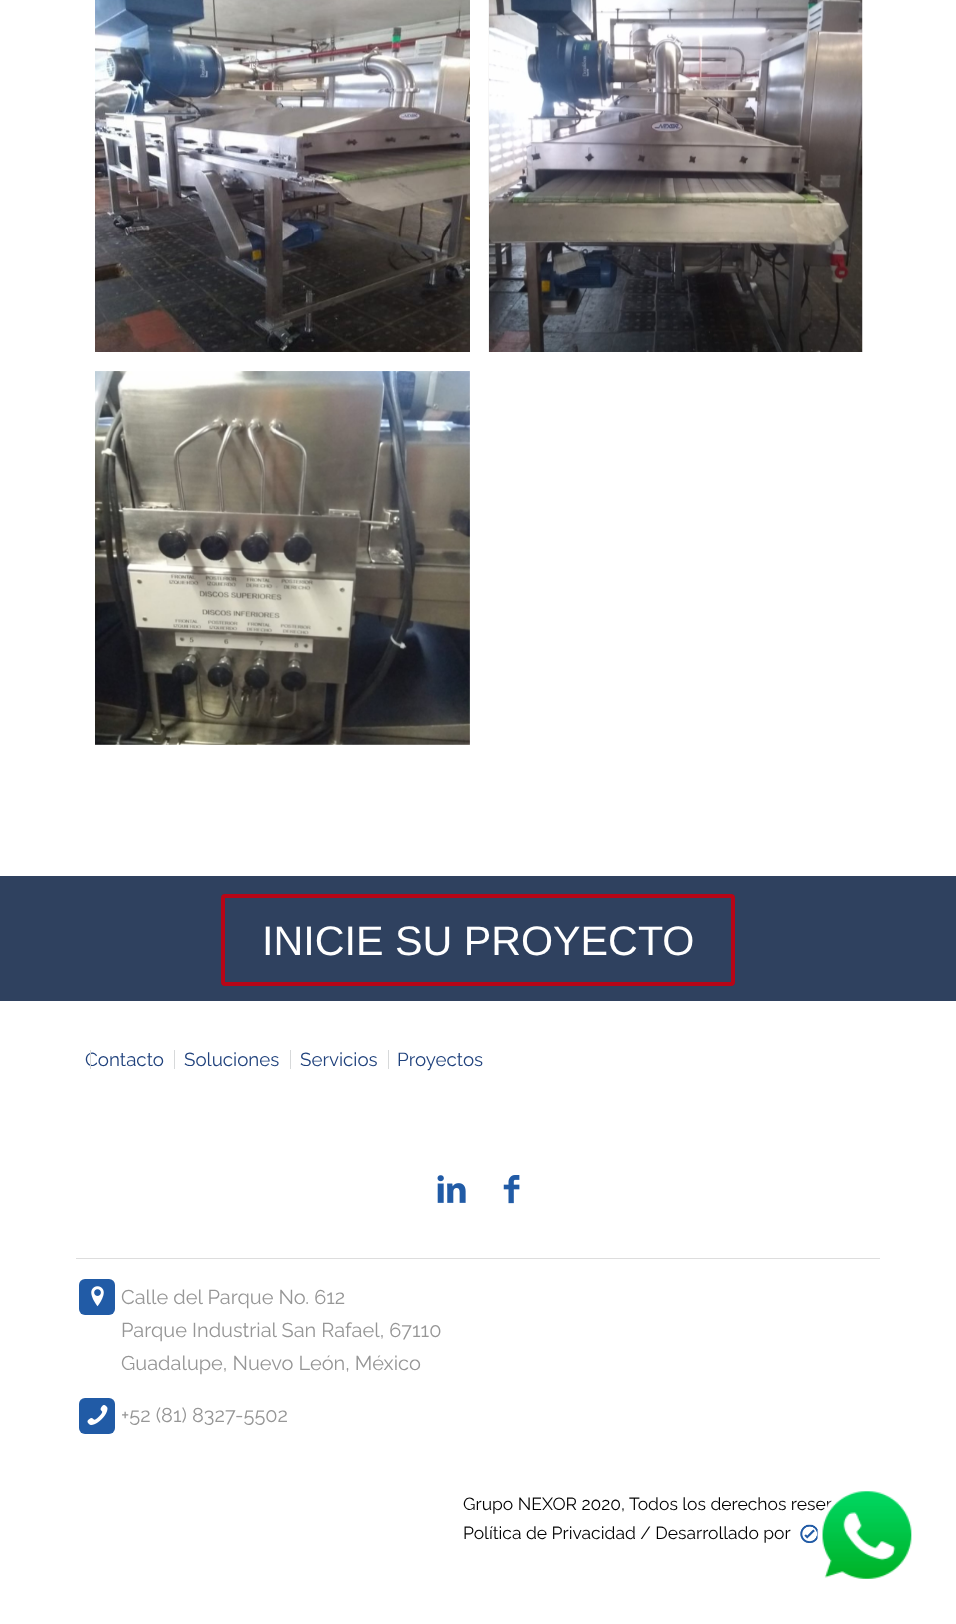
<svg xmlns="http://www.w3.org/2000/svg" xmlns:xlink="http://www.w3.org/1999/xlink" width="956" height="1624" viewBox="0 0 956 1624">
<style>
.cls-1{font:41.25px Liberation Sans;fill:#ffffff}
.cls-2{font:100 18.75px Raleway;fill:#1f417c}
.cls-3{font:100 20px Raleway;fill:#969696}
.cls-4{font:100 17.5px Raleway;fill:#000000}
</style>
<rect width="100%" height="100%" fill="#ffffff"/>
<image xlink:href="image0.png" x="95" y="0" width="375" height="352"/>
<image xlink:href="image1.png" x="488" y="0" width="375" height="352"/>
<image xlink:href="image2.png" x="95" y="371" width="375" height="374"/>
<rect fill="#2f415f" x="0" y="876" width="956" height="125"/>
<rect fill="none" stroke="#b70617" stroke-width="4" x="223" y="896" width="510" height="88" rx="2"/>
<rect fill="#d7d9da" x="174" y="1050" width="1" height="19"/>
<rect fill="#d7d9da" x="290" y="1050" width="1" height="19"/>
<rect fill="#d7d9da" x="388" y="1050" width="1" height="19"/>
<image xlink:href="image3.png" x="437" y="1175" width="29" height="28"/>
<image xlink:href="image4.png" x="503" y="1175" width="17" height="29"/>
<rect fill="#dddddd" x="76" y="1258" width="804" height="1"/>
<rect fill="#215ba6" x="79" y="1279" width="36" height="36" rx="6"/>
<image xlink:href="image5.png" x="91" y="1286" width="13" height="21"/>
<rect fill="#215ba6" x="79" y="1398" width="36" height="36" rx="6"/>
<image xlink:href="image6.png" x="87" y="1405" width="21" height="20"/>
<image xlink:href="image7.png" x="800" y="1524" width="19" height="19"/>
<text class="cls-1" x="262" y="955">INICIE SU PROYECTO</text>
<text class="cls-2" x="85" y="1066">Contacto</text>
<rect fill="#d7d9da" x="90" y="1050" width="1" height="19"/>
<text class="cls-2" x="184" y="1066">Soluciones</text>
<text class="cls-2" x="300" y="1066">Servicios</text>
<text class="cls-2" x="397" y="1066">Proyectos</text>
<text class="cls-3"><tspan x="121" y="1304">Calle del Parque No. 612</tspan><tspan x="121" y="1337">Parque Industrial San Rafael, 67110</tspan><tspan x="121" y="1370">Guadalupe, Nuevo León, México</tspan></text>
<text class="cls-3" x="121" y="1422">+52 (81) 8327-5502</text>
<text class="cls-4"><tspan x="463" y="1510">Grupo NEXOR 2020, Todos los derechos reser</tspan><tspan x="463" y="1539">Política de Privacidad / Desarrollado por</tspan></text>
<image xlink:href="image8.png" x="817" y="1491" width="95" height="88"/>
</svg>
